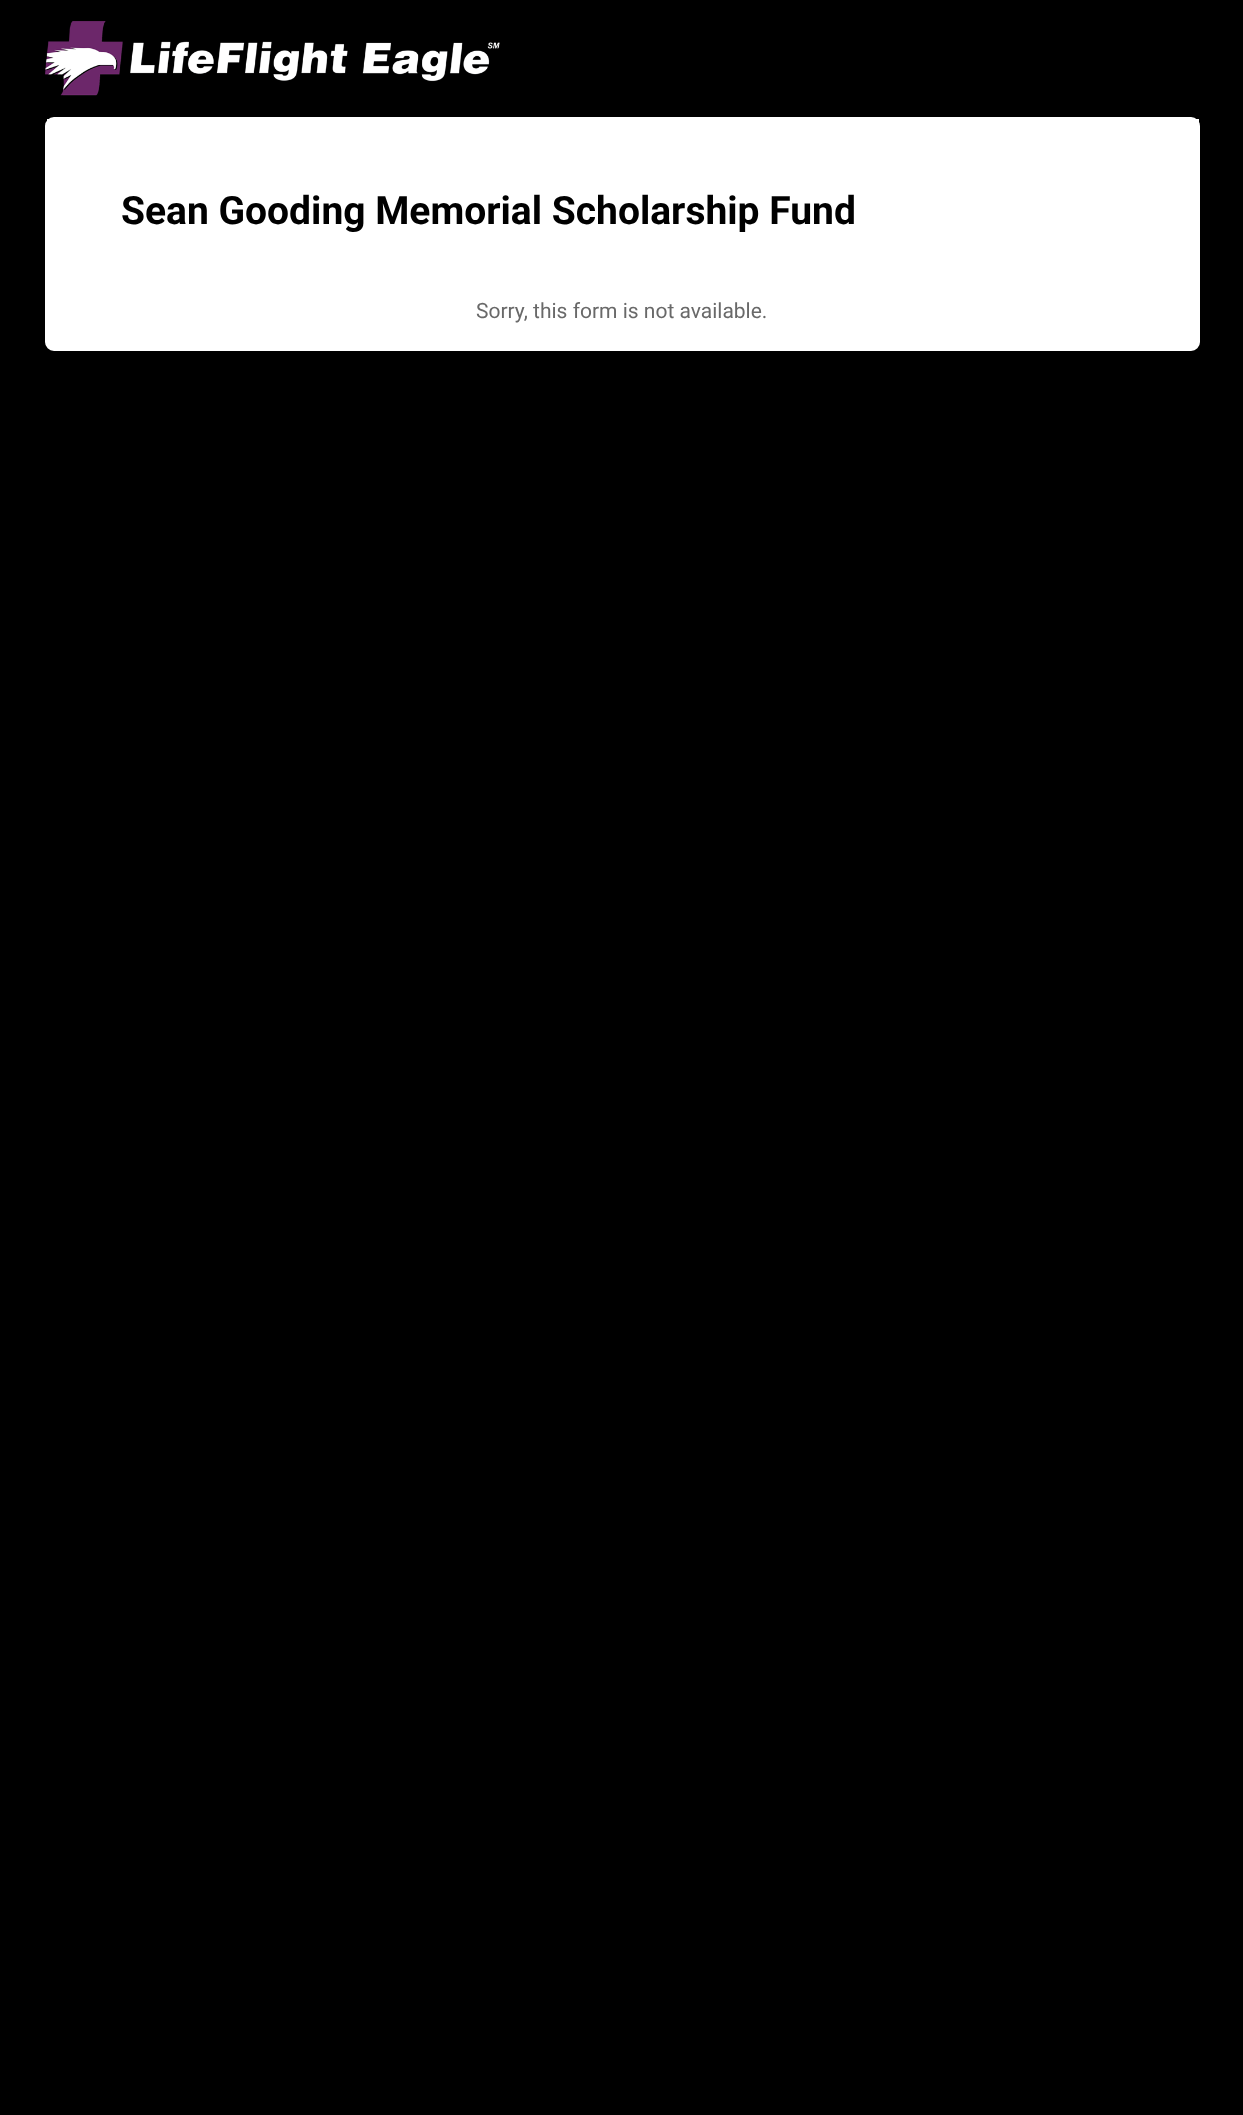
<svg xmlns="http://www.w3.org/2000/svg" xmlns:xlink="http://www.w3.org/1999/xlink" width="1243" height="2115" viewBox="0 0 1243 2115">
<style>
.cls-1{font:bold 39px Roboto;fill:#000000}
.cls-2{font:21px Roboto;fill:#696969}
</style>
<rect width="100%" height="100%" fill="#000000"/>
<image xlink:href="image0.png" x="45" y="21" width="455" height="75"/>
<rect fill="#ffffff" stroke="#ffffff" stroke-width="2" x="46" y="118" width="1153" height="232" rx="8"/>
<rect fill="#ffffff" x="47" y="119" width="1152" height="3"/>
<text class="cls-1" x="121" y="224">Sean Gooding Memorial Scholarship Fund</text>
<text class="cls-2" x="476" y="318">Sorry, this form is not available.</text>
</svg>
